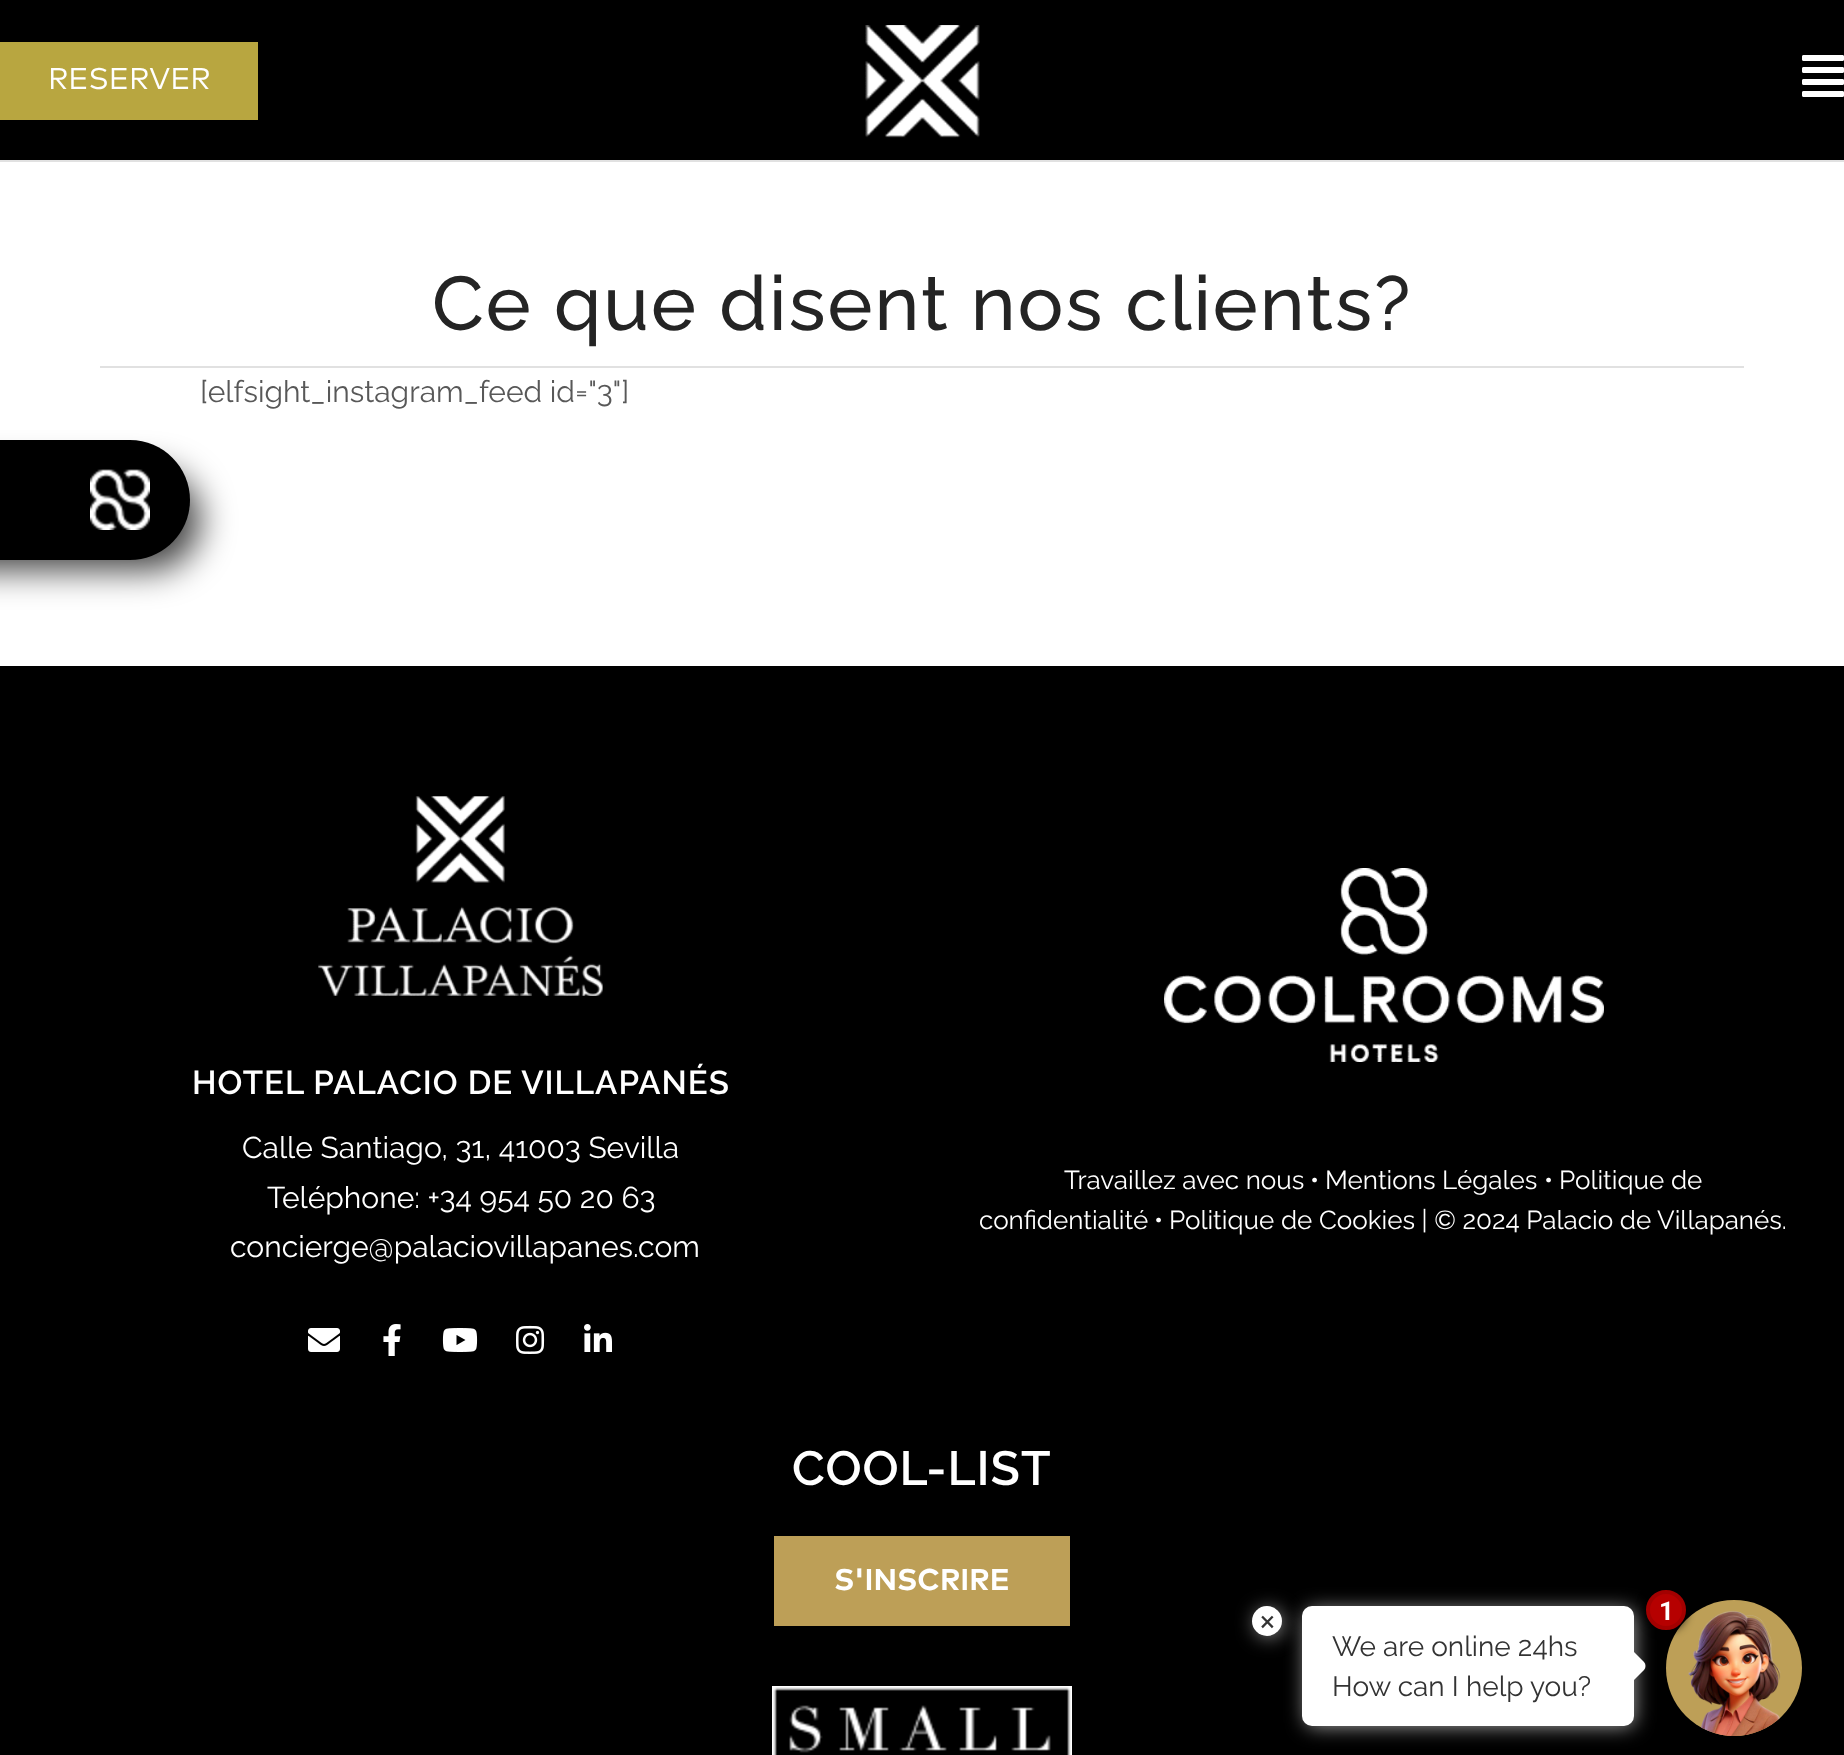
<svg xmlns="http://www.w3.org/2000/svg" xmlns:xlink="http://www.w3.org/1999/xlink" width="1844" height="1755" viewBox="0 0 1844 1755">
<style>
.cls-1{font:30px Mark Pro;fill:#ffffff}
.cls-2{font:500 76px Raleway;letter-spacing:2px;fill:#242424}
.cls-3{font:30px Raleway;fill:#585858}
.cls-4{font:600 33px Raleway;letter-spacing:1px;fill:#ffffff}
.cls-5{font:30px Raleway;fill:#ffffff}
.cls-6{font:26px Raleway;fill:#ffffff}
.cls-7{font:600 48px Raleway;letter-spacing:1px;fill:#ffffff}
.cls-8{font:bold 30px Mark Pro;fill:#ffffff}
.cls-9{font:bold 26px Roboto;fill:#ffffff}
.cls-10{font:28px Roboto;fill:#333333}
.cls-11{font:28px Raleway;fill:#333333}
</style>
<rect width="100%" height="100%" fill="#000000"/>
<rect fill="#b8a640" x="0" y="42" width="258" height="78"/>
<image xlink:href="image0.png" x="865" y="25" width="115" height="113"/>
<image xlink:href="image1.png" x="1802" y="55" width="42" height="42"/>
<rect fill="#ffffff" x="0" y="162" width="1844" height="504"/>
<rect fill="#e1e1e1" x="0" y="160" width="1844" height="2"/>
<rect fill="#e1e1e1" x="100" y="366" width="1644" height="2"/>
<rect fill="#000000" fill-opacity="0.75" filter="blur(17px)" x="-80" y="470" width="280" height="100" rx="50"/>
<path fill="#000000" d="M-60 440H130C163 440 190 467 190 500C190 533 163 560 130 560H-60Z"/>
<image xlink:href="image2.png" x="90" y="469" width="60" height="61"/>
<image xlink:href="image3.png" x="318" y="796" width="285" height="200"/>
<image xlink:href="image4.png" x="308" y="1328" width="32" height="24"/>
<image xlink:href="image5.png" x="383" y="1324" width="18" height="32"/>
<image xlink:href="image6.png" x="442" y="1328" width="36" height="24"/>
<image xlink:href="image7.png" x="516" y="1325" width="29" height="29"/>
<image xlink:href="image8.png" x="584" y="1324" width="28" height="28"/>
<image xlink:href="image9.png" x="1164" y="868" width="440" height="194"/>
<rect fill="#bd9f57" x="774" y="1536" width="296" height="90"/>
<image xlink:href="image10.png" x="772" y="1686" width="300" height="69"/>
<rect fill="#aaaaaa" filter="blur(10px)" x="1306" y="1610" width="328" height="116" rx="8"/>
<rect fill="#ffffff" x="1302" y="1606" width="332" height="120" rx="10"/>
<circle fill="#bd9f57" cx="1734" cy="1668" r="68"/>
<image xlink:href="image11.png" x="1688" y="1610" width="93" height="126"/>
<rect fill="#000000" filter="blur(5px)" x="1646" y="1590" width="40" height="40" rx="20"/>
<circle fill="#b60000" stroke="#a30000" stroke-width="4" cx="1666" cy="1610" r="18"/>
<rect fill="#aaaaaa" filter="blur(10px)" x="1256" y="1610" width="26" height="26" rx="13"/>
<circle fill="#ffffff" cx="1267" cy="1621" r="15"/>
<path fill="#ffffff" d="M1634 1652L1644 1662C1646 1664 1646 1668 1644 1670L1634 1680L1620 1666Z"/>
<text class="cls-1" x="48" y="89">RESERVER</text>
<text class="cls-2" x="432" y="330">Ce que disent nos clients?</text>
<text class="cls-3" x="200" y="402">[elfsight_instagram_feed id="3"]</text>
<text class="cls-4" x="192" y="1094">HOTEL PALACIO DE VILLAPANÉS</text>
<text class="cls-5" x="242" y="1158">Calle Santiago, 31, 41003 Sevilla</text>
<text class="cls-5" x="267" y="1208">Teléphone: +34 954 50 20 63</text>
<text class="cls-5" x="230" y="1257">concierge@palaciovillapanes.com</text>
<text class="cls-6" x="1064" y="1189">Travaillez avec nous</text>
<text class="cls-6" x="1310" y="1189">•</text>
<text class="cls-6" x="1325" y="1189">Mentions Légales</text>
<text class="cls-6" x="1544" y="1189">•</text>
<text class="cls-6" x="1559" y="1189">Politique de</text>
<text class="cls-6" x="979" y="1229">confidentialité</text>
<text class="cls-6" x="1154" y="1229">•</text>
<text class="cls-6" x="1169" y="1229">Politique de Cookies | © 2024 Palacio de Villapanés.</text>
<text class="cls-7" x="792" y="1485">COOL-LIST</text>
<text class="cls-8" x="834" y="1590">S'INSCRIRE</text>
<text class="cls-9" x="1659" y="1620">1</text>
<text class="cls-10" x="1260" y="1631">×</text>
<text class="cls-11"><tspan x="1332" y="1656">We are online 24hs</tspan><tspan x="1332" y="1696">How can I help you?</tspan></text>
</svg>
